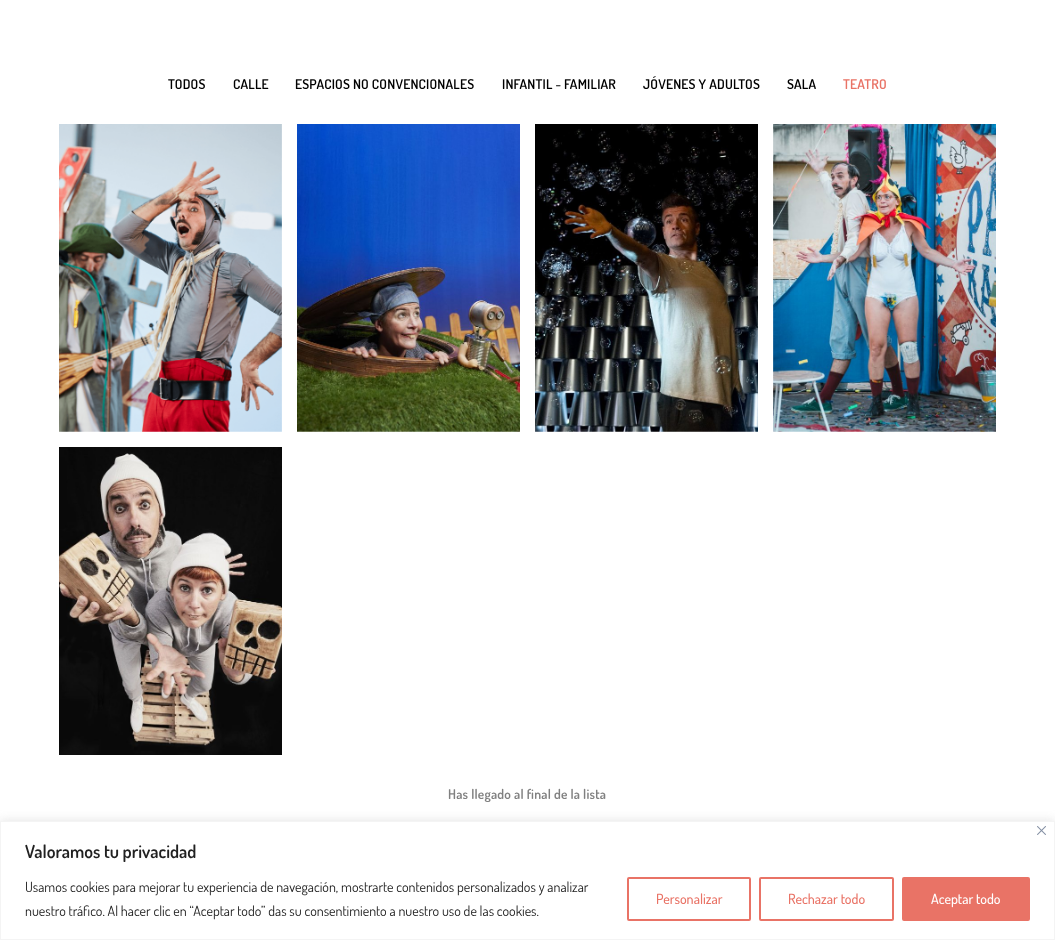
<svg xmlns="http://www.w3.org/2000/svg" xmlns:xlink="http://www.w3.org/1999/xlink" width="1055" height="940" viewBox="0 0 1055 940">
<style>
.cls-1{font:600 13.5px Dosis;letter-spacing:0.2px;fill:#000000}
.cls-2{font:600 13.5px Dosis;letter-spacing:0.2px;fill:#e97366}
.cls-3{font:600 13.5px Dosis;letter-spacing:0.2px;fill:#808080}
.cls-4{font:600 18px Dosis;fill:#212121}
.cls-5{font:14px Dosis;fill:#212121}
.cls-6{font:500 14px Dosis;fill:#e97366}
.cls-7{font:500 14px Dosis;fill:#ffffff}
</style>
<rect width="100%" height="100%" fill="#ffffff"/>
<image xlink:href="image0.png" x="59" y="124" width="223" height="308"/>
<image xlink:href="image1.png" x="297" y="124" width="223" height="308"/>
<image xlink:href="image2.png" x="535" y="124" width="223" height="308"/>
<image xlink:href="image3.png" x="773" y="124" width="223" height="308"/>
<image xlink:href="image4.png" x="59" y="447" width="223" height="308"/>
<rect fill="#acabab" fill-opacity="0.3" filter="blur(5px)" x="0" y="820" width="1055" height="119"/>
<rect fill="#ffffff" stroke="#f4f4f4" x="0.5" y="821.5" width="1054" height="118"/>
<image xlink:href="image5.png" x="1037" y="826" width="9" height="9"/>
<rect fill="none" stroke="#e97366" stroke-width="2" x="628" y="878" width="122" height="42" rx="1"/>
<rect fill="none" stroke="#e97366" stroke-width="2" x="760" y="878" width="133" height="42" rx="1"/>
<rect fill="#e97366" stroke="#e97366" stroke-width="2" x="903" y="878" width="126" height="42" rx="1"/>
<text class="cls-1" x="168" y="89">TODOS</text>
<text class="cls-1" x="233" y="89">CALLE</text>
<text class="cls-1" x="295" y="89">ESPACIOS NO CONVENCIONALES</text>
<text class="cls-1" x="502" y="89">INFANTIL - FAMILIAR</text>
<text class="cls-1" x="643" y="89">JÓVENES Y ADULTOS</text>
<text class="cls-1" x="787" y="89">SALA</text>
<text class="cls-2" x="843" y="89">TEATRO</text>
<text class="cls-3" x="448" y="799">Has llegado al final de la lista</text>
<text class="cls-4" x="25" y="858">Valoramos tu privacidad</text>
<text class="cls-5"><tspan x="25" y="892">Usamos cookies para mejorar tu experiencia de navegación, mostrarte contenidos personalizados y analizar</tspan><tspan x="25" y="916">nuestro tráfico. Al hacer clic en “Aceptar todo” das su consentimiento a nuestro uso de las cookies.</tspan></text>
<text class="cls-6" x="656" y="904">Personalizar</text>
<text class="cls-6" x="788" y="904">Rechazar todo</text>
<text class="cls-7" x="931" y="904">Aceptar todo</text>
</svg>
